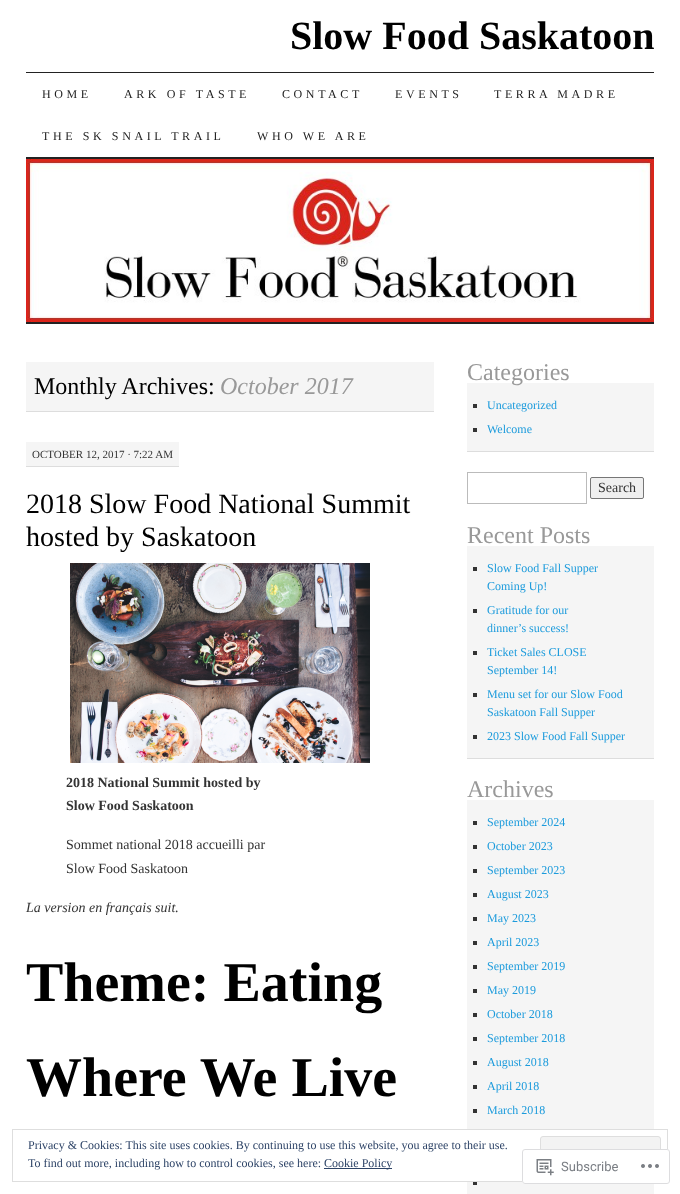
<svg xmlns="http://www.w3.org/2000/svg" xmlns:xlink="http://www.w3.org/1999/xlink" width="680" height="1194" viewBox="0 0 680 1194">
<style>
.cls-1{font:bold 40px Liberation Serif;fill:#000000}
.cls-2{font:12px Liberation Serif;letter-spacing:3.6px;fill:#222222}
.cls-3{font:24px Liberation Serif;fill:#000000}
.cls-4{font:italic 24px Liberation Serif;fill:#999999}
.cls-5{font:11px Liberation Serif;fill:#333333}
.cls-6{font:28px Liberation Serif;fill:#000000}
.cls-7{font:bold 14px Liberation Serif;fill:#333333}
.cls-8{font:14px Liberation Serif;fill:#333333}
.cls-9{font:italic 14px Liberation Serif;fill:#333333}
.cls-10{font:bold 56px Liberation Serif;fill:#000000}
.cls-11{font:24px Liberation Serif;fill:#999999}
.cls-12{font:12px Liberation Serif;fill:#1c9bdc}
.cls-13{font:12px Liberation Serif;fill:#2e4467}
.cls-14{font:13px Roboto;fill:#7a7e84}
</style>
<rect width="100%" height="100%" fill="#ffffff"/>
<rect fill="#222222" x="26" y="72" width="628" height="1"/>
<rect fill="#222222" x="26" y="157" width="628" height="2"/>
<image xlink:href="image0.png" x="26" y="159" width="628" height="163"/>
<rect fill="#222222" x="26" y="322" width="628" height="2"/>
<rect fill="#f5f5f5" x="26" y="362" width="408" height="49"/>
<rect fill="#dddddd" x="26" y="411" width="408" height="1"/>
<rect fill="#f5f5f5" x="26" y="442" width="153" height="24"/>
<rect fill="#dddddd" x="26" y="466" width="153" height="1"/>
<image xlink:href="image1.png" x="70" y="563" width="300" height="200"/>
<rect fill="#f5f5f5" x="467" y="383" width="187" height="68"/>
<rect fill="#dddddd" x="467" y="451" width="187" height="1"/>
<rect fill="#333333" x="473" y="404" width="4" height="4"/>
<rect fill="#333333" x="473" y="428" width="4" height="4"/>
<rect fill="none" stroke="#bbbbbb" x="467.5" y="472.5" width="119" height="31"/>
<rect fill="#efefef" stroke="#767676" x="590.5" y="477.5" width="53" height="21" rx="1.5"/>
<rect fill="#f5f5f5" x="467" y="546" width="187" height="212"/>
<rect fill="#dddddd" x="467" y="758" width="187" height="1"/>
<rect fill="#333333" x="473" y="567" width="4" height="4"/>
<rect fill="#333333" x="473" y="609" width="4" height="4"/>
<rect fill="#333333" x="473" y="651" width="4" height="4"/>
<rect fill="#333333" x="473" y="693" width="4" height="4"/>
<rect fill="#333333" x="473" y="735" width="4" height="4"/>
<rect fill="#f5f5f5" x="467" y="800" width="187" height="394"/>
<rect fill="#333333" x="473" y="821" width="4" height="4"/>
<rect fill="#333333" x="473" y="845" width="4" height="4"/>
<rect fill="#333333" x="473" y="869" width="4" height="4"/>
<rect fill="#333333" x="473" y="893" width="4" height="4"/>
<rect fill="#333333" x="473" y="917" width="4" height="4"/>
<rect fill="#333333" x="473" y="941" width="4" height="4"/>
<rect fill="#333333" x="473" y="965" width="4" height="4"/>
<rect fill="#333333" x="473" y="989" width="4" height="4"/>
<rect fill="#333333" x="473" y="1013" width="4" height="4"/>
<rect fill="#333333" x="473" y="1037" width="4" height="4"/>
<rect fill="#333333" x="473" y="1061" width="4" height="4"/>
<rect fill="#333333" x="473" y="1085" width="4" height="4"/>
<rect fill="#333333" x="473" y="1109" width="4" height="4"/>
<rect fill="#333333" x="473" y="1182" width="4" height="3"/>
<rect fill="#ffffff" x="467" y="1130" width="187" height="51"/>
<rect fill="none" stroke="#dedede" x="12.5" y="1129.5" width="655" height="52"/>
<rect fill="#f3f3f3" stroke="#dedede" x="540.5" y="1136.5" width="120" height="38" rx="2.5"/>
<rect fill="#2e4467" x="324" y="1168" width="68" height="1"/>
<rect fill="#ffffff" fill-opacity="0.98" x="522" y="1149" width="148" height="35" rx="3"/>
<rect fill="none" stroke="#dcdcde" stroke-opacity="0.98" x="522.5" y="1149.5" width="147" height="34" rx="2.5"/>
<image xlink:href="image2.png" x="536" y="1159" width="18" height="17"/>
<image xlink:href="image3.png" x="641" y="1164" width="18" height="4"/>
<text class="cls-1" x="290" y="49">Slow Food Saskatoon</text>
<text class="cls-2" x="42" y="98">HOME</text>
<text class="cls-2" x="124" y="98">ARK OF TASTE</text>
<text class="cls-2" x="282" y="98">CONTACT</text>
<text class="cls-2" x="395" y="98">EVENTS</text>
<text class="cls-2" x="494" y="98">TERRA MADRE</text>
<text class="cls-2" x="42" y="140">THE SK SNAIL TRAIL</text>
<text class="cls-2" x="257" y="140">WHO WE ARE</text>
<text class="cls-3" x="34" y="394">Monthly Archives:</text>
<text class="cls-4" x="220" y="394">October 2017</text>
<text class="cls-5" x="32" y="458">OCTOBER 12, 2017 · 7:22 AM</text>
<text class="cls-6"><tspan x="26" y="513">2018 Slow Food National Summit</tspan><tspan x="26" y="546">hosted by Saskatoon</tspan></text>
<text class="cls-7"><tspan x="66" y="787">2018 National Summit hosted by</tspan><tspan x="66" y="810">Slow Food Saskatoon</tspan></text>
<text class="cls-8"><tspan x="66" y="849">Sommet national 2018 accueilli par</tspan><tspan x="66" y="873">Slow Food Saskatoon</tspan></text>
<text class="cls-9" x="26" y="912">La version en français suit.</text>
<text class="cls-10"><tspan x="26" y="1001">Theme: Eating</tspan><tspan x="26" y="1096">Where We Live</tspan></text>
<text class="cls-11" x="467" y="380">Categories</text>
<text class="cls-12" x="487" y="409">Uncategorized</text>
<text class="cls-12" x="487" y="433">Welcome</text>
<text class="cls-8" x="598" y="492">Search</text>
<text class="cls-11" x="467" y="543">Recent Posts</text>
<text class="cls-12"><tspan x="487" y="572">Slow Food Fall Supper</tspan><tspan x="487" y="590">Coming Up!</tspan></text>
<text class="cls-12"><tspan x="487" y="614">Gratitude for our</tspan><tspan x="487" y="632">dinner’s success!</tspan></text>
<text class="cls-12"><tspan x="487" y="656">Ticket Sales CLOSE</tspan><tspan x="487" y="674">September 14!</tspan></text>
<text class="cls-12"><tspan x="487" y="698">Menu set for our Slow Food</tspan><tspan x="487" y="716">Saskatoon Fall Supper</tspan></text>
<text class="cls-12" x="487" y="740">2023 Slow Food Fall Supper</text>
<text class="cls-11" x="467" y="797">Archives</text>
<text class="cls-12" x="487" y="826">September 2024</text>
<text class="cls-12" x="487" y="850">October 2023</text>
<text class="cls-12" x="487" y="874">September 2023</text>
<text class="cls-12" x="487" y="898">August 2023</text>
<text class="cls-12" x="487" y="922">May 2023</text>
<text class="cls-12" x="487" y="946">April 2023</text>
<text class="cls-12" x="487" y="970">September 2019</text>
<text class="cls-12" x="487" y="994">May 2019</text>
<text class="cls-12" x="487" y="1018">October 2018</text>
<text class="cls-12" x="487" y="1042">September 2018</text>
<text class="cls-12" x="487" y="1066">August 2018</text>
<text class="cls-12" x="487" y="1090">April 2018</text>
<text class="cls-12" x="487" y="1114">March 2018</text>
<text class="cls-13"><tspan x="28" y="1149">Privacy &amp; Cookies: This site uses cookies. By continuing to use this website, you agree to their use.</tspan><tspan x="28" y="1167">To find out more, including how to control cookies, see here:</tspan></text>
<text class="cls-13" x="324" y="1167">Cookie Policy</text>
<text class="cls-14" x="561" y="1171">Subscribe</text>
</svg>
